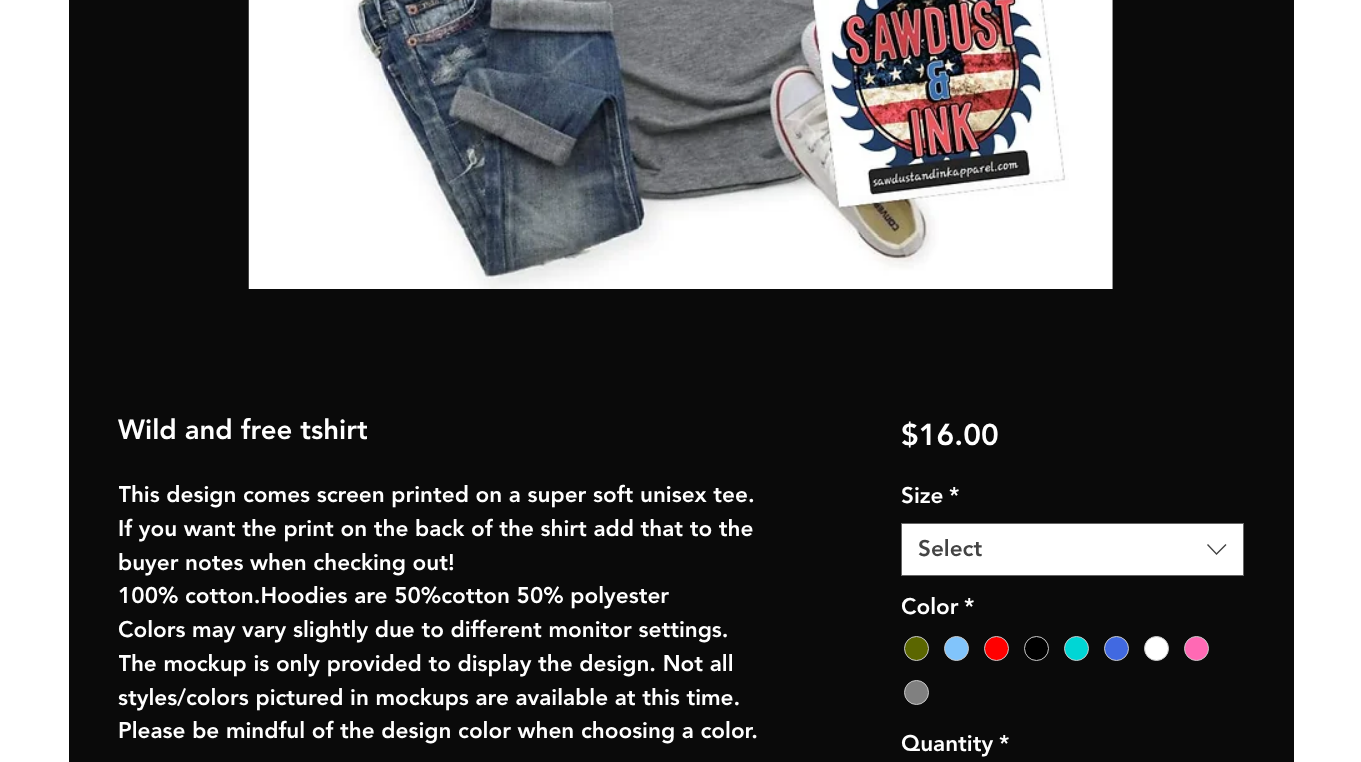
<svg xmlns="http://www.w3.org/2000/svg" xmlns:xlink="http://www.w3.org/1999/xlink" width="1361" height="762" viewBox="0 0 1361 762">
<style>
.cls-1{font:900 27.5px 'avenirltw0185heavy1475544';fill:#ffffff}
.cls-2{font:900 22.5px 'avenirltw0185heavy1475544';fill:#ffffff}
.cls-3{font:900 30px 'avenirltw0185heavy1475544';fill:#ffffff}
.cls-4{font:900 22.5px 'avenirltw0185heavy1475544';fill:#444444}
</style>
<defs>
<clipPath id="clip1"><rect x="119" y="479" width="682" height="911"/></clipPath>
</defs>
<rect width="100%" height="100%" fill="#ffffff"/>
<rect fill="#0a0a0a" x="69" y="0" width="1225" height="762"/>
<image xlink:href="image0.png" x="248" y="0" width="865" height="289"/>
<rect fill="#ffffff" stroke="#666666" x="901.5" y="523.5" width="342" height="52"/>
<path fill="#444444" fill-rule="evenodd" d="M1225.5 544L1226.5 545L1216.5 555L1207 545L1208 544L1216.5 553Z"/>
<circle fill="#5b6600" stroke="#c9c9c9" cx="916.5" cy="648.5" r="12"/>
<circle fill="#81c4fb" stroke="#c9c9c9" cx="956.5" cy="648.5" r="12"/>
<circle fill="#ff0000" stroke="#c9c9c9" cx="996.5" cy="648.5" r="12"/>
<circle fill="#000000" stroke="#c9c9c9" cx="1036.5" cy="648.5" r="12"/>
<circle fill="#00d6d5" stroke="#c9c9c9" cx="1076.5" cy="648.5" r="12"/>
<circle fill="#4169e1" stroke="#c9c9c9" cx="1116.5" cy="648.5" r="12"/>
<circle fill="#ffffff" stroke="#c9c9c9" cx="1156.5" cy="648.5" r="12"/>
<circle fill="#ff69b4" stroke="#c9c9c9" cx="1196.5" cy="648.5" r="12"/>
<circle fill="#808080" stroke="#c9c9c9" cx="916.5" cy="692.5" r="12"/>
<text class="cls-1" x="118" y="439">Wild and free tshirt</text>
<g clip-path="url(#clip1)">
<text class="cls-2" x="118" y="502">This design comes screen printed on a super soft unisex tee.</text>
</g>
<text class="cls-2"><tspan x="118" y="536">If you want the print on the back of the shirt add that to the</tspan><tspan x="118" y="570">buyer notes when checking out!</tspan><tspan x="118" y="603">100% cotton.Hoodies are 50%cotton 50% polyester</tspan><tspan x="118" y="637">Colors may vary slightly due to different monitor settings.</tspan></text>
<g clip-path="url(#clip1)">
<text class="cls-2" x="118" y="671">The mockup is only provided to display the design. Not all</text>
</g>
<text class="cls-2"><tspan x="118" y="705">styles/colors pictured in mockups are available at this time.</tspan><tspan x="118" y="738">Please be mindful of the design color when choosing a color.</tspan></text>
<text class="cls-3" x="901" y="445">$16.00</text>
<text class="cls-2" x="901" y="503">Size</text>
<text class="cls-2" x="949" y="503">*</text>
<text class="cls-4" x="918" y="556">Select</text>
<text class="cls-2" x="901" y="614">Color</text>
<text class="cls-2" x="964" y="614">*</text>
<text class="cls-2" x="901" y="751">Quantity</text>
<text class="cls-2" x="999" y="751">*</text>
</svg>
